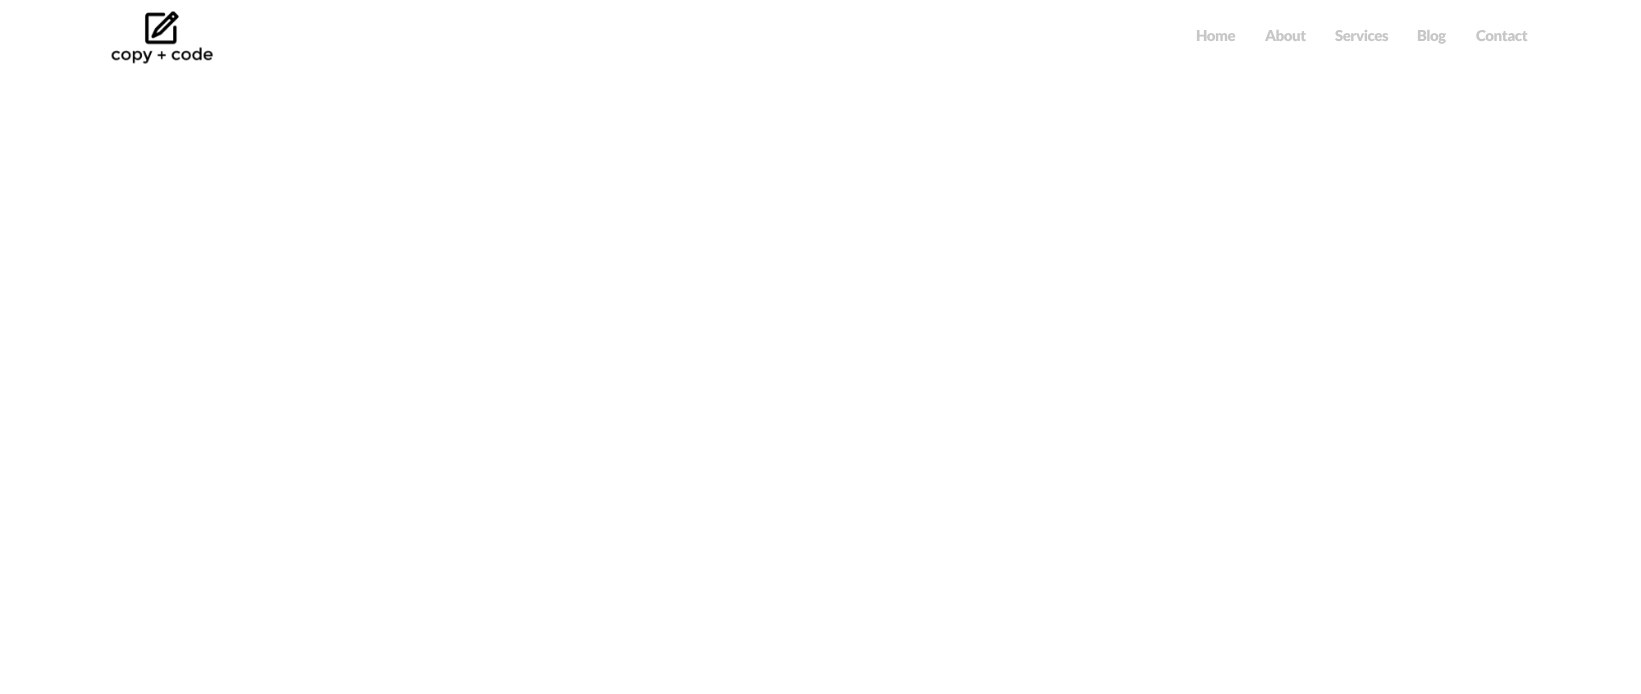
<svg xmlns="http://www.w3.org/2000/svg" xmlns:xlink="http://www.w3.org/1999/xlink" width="1641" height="694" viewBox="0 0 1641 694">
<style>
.cls-1{font:900 15px Lato;letter-spacing:-0.5px;fill:#c7c7c7}
</style>
<rect width="100%" height="100%" fill="#ffffff"/>
<image xlink:href="image0.png" x="111" y="11" width="103" height="53"/>
<text class="cls-1" x="1196" y="41">Home</text>
<text class="cls-1" x="1265" y="41">About</text>
<text class="cls-1" x="1335" y="41">Services</text>
<text class="cls-1" x="1417" y="41">Blog</text>
<text class="cls-1" x="1476" y="41">Contact</text>
</svg>
